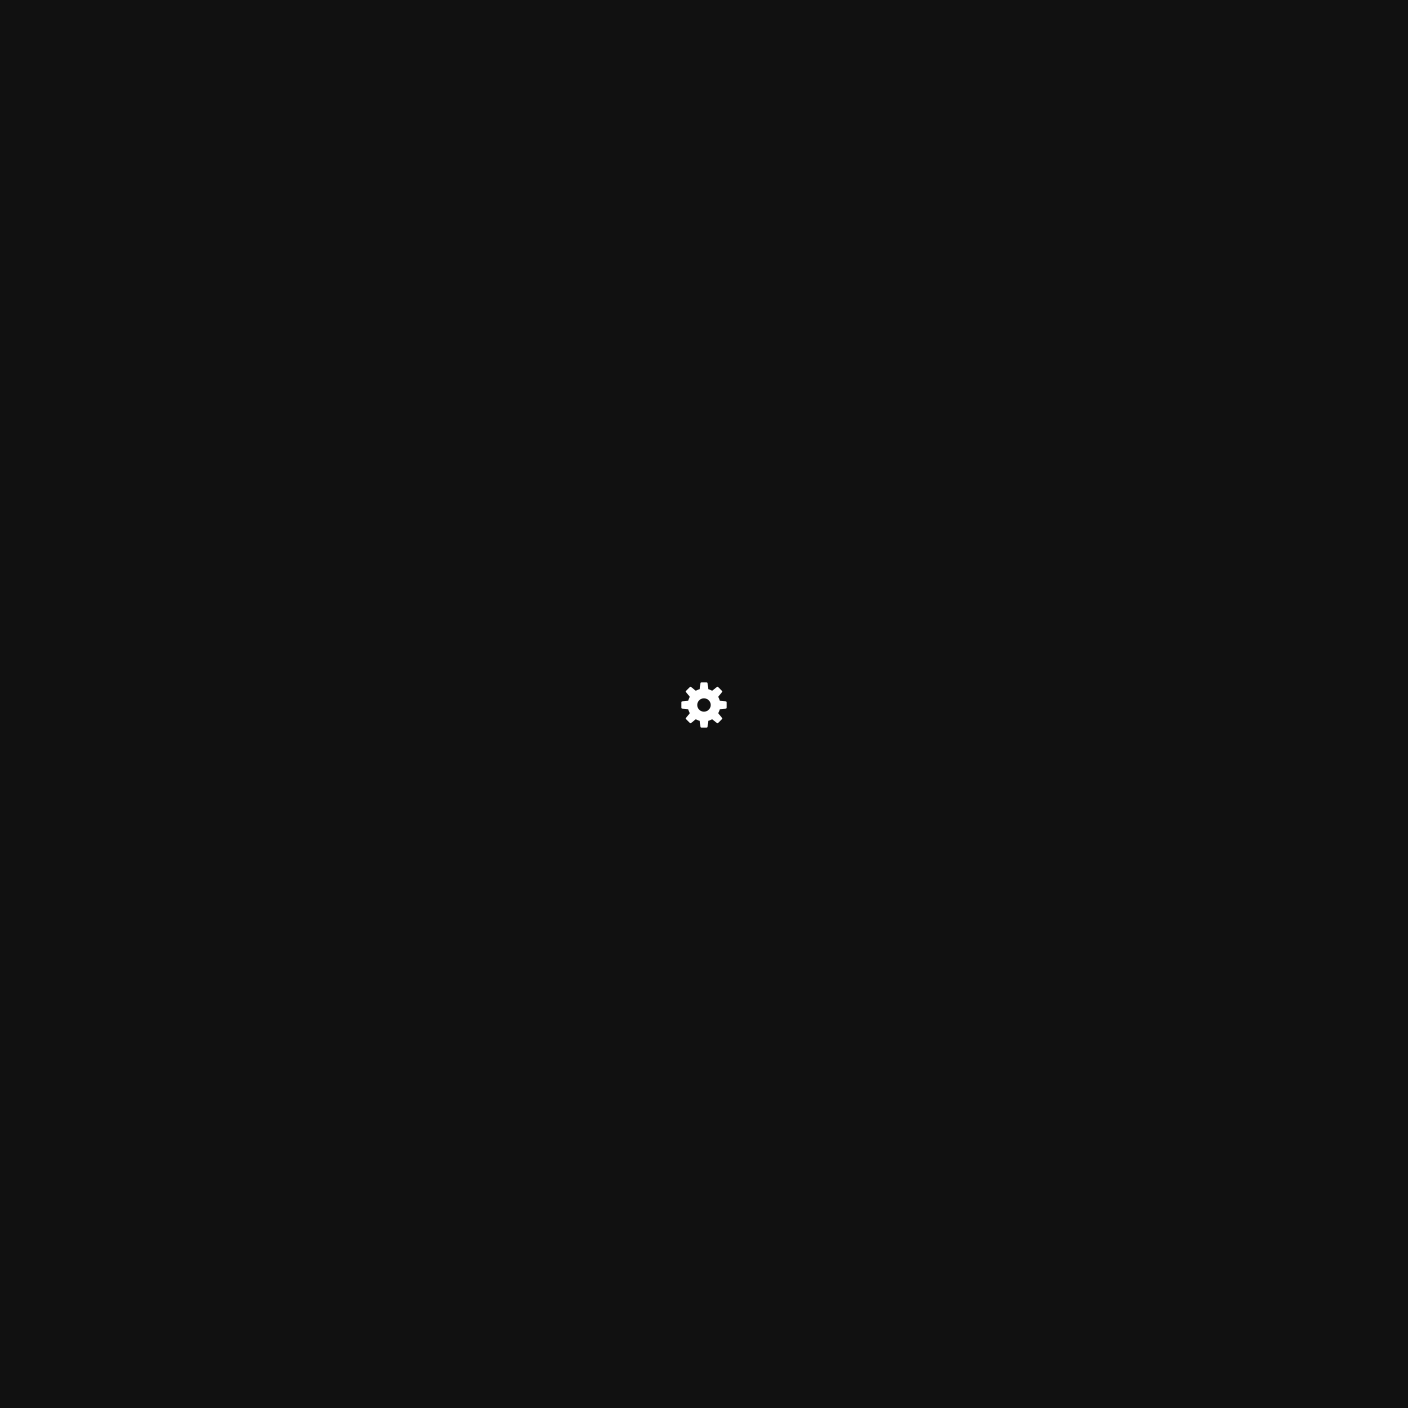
<svg xmlns="http://www.w3.org/2000/svg" xmlns:xlink="http://www.w3.org/1999/xlink" width="1408" height="1408" viewBox="0 0 1408 1408">
<rect width="100%" height="100%" fill="#111111"/>
<image xlink:href="image0.png" x="681" y="682" width="46" height="46"/>
</svg>
